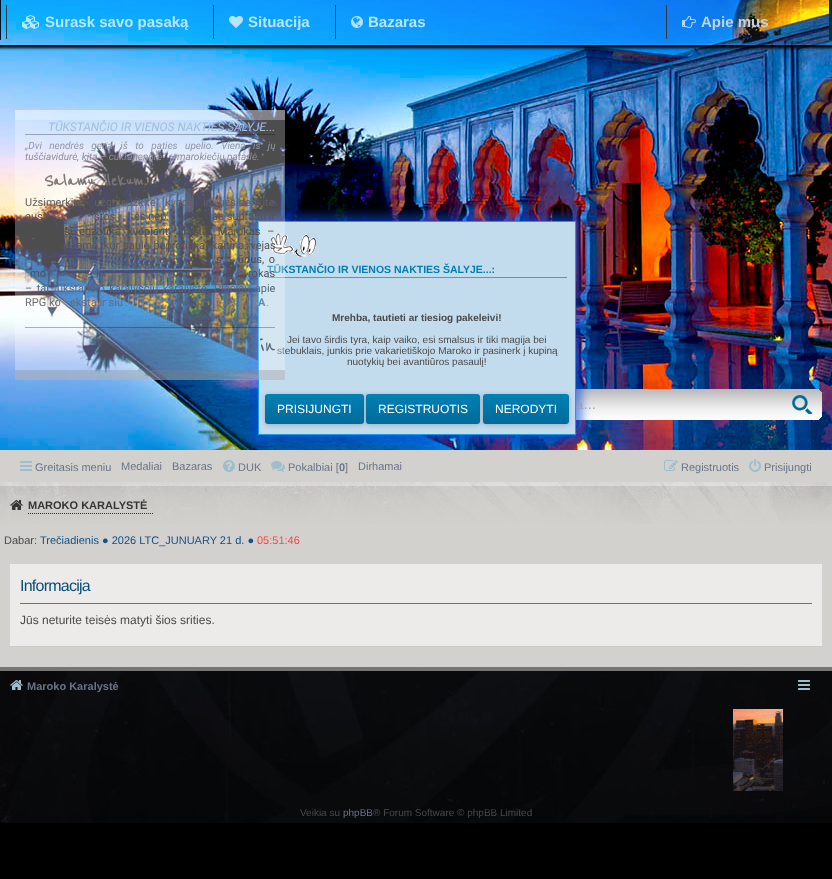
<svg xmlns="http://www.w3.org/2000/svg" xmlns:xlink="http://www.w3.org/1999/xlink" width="832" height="879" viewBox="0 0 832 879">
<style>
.cls-1{font:bold 15px Liberation Sans;fill:#b6e6ff}
.cls-2{font:bold 15px Liberation Sans;fill:#c4d3e0}
.cls-3{font:13px Liberation Sans;fill:#9f9f9f}
.cls-4{font:bold 10.5px Liberation Sans;fill:#0080b2}
.cls-5{font:bold 10px Liberation Sans;fill:#4a4a4a}
.cls-6{font:10px Liberation Sans;fill:#4a4a4a}
.cls-7{font:500 30px Reenie Beanie;fill:#56687d}
.cls-8{font:11px Roboto;fill:#8d9da7}
.cls-9{font:bold 11px Roboto;fill:#668aab}
.cls-10{font:11px Roboto;fill:#646e73}
.cls-11{font:11px Roboto;fill:#56687d}
.cls-12{font:11px Roboto;fill:#4c535e}
.cls-13{font:11px Roboto;fill:#4c4f57}
.cls-14{font:11px Roboto;fill:#5a5453}
.cls-15{font:11px Roboto;fill:#55514a}
.cls-16{font:11px Roboto;fill:#646162}
.cls-17{font:bold 20px Reenie Beanie;fill:#7c7777}
.cls-18{font:italic 10px Roboto;fill:#8f8e97}
.cls-19{font:italic 10px Roboto;fill:#9196a2}
.cls-20{font:italic 12px Roboto;fill:#a4bed7}
.cls-21{font:12px Liberation Sans;fill:#ffffff}
.cls-22{font:11px Liberation Sans;fill:#697489}
.cls-23{font:bold 11px Liberation Sans;fill:#697489}
.cls-24{font:bold 11px Liberation Sans;fill:#363535}
.cls-25{font:11px Liberation Sans;fill:#4a4a4a}
.cls-26{font:11px Liberation Sans;fill:#105289}
.cls-27{font:11px Liberation Sans;fill:#ff4444}
.cls-28{font:16px Liberation Sans;letter-spacing:-0.75px;fill:#074e79}
.cls-29{font:12px Liberation Sans;fill:#4a4a4a}
.cls-30{font:10px Liberation Sans;fill:#697489}
</style>
<defs>
<clipPath id="clip1"><rect x="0" y="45" width="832" height="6"/></clipPath>
<linearGradient id="g1" gradientUnits="userSpaceOnUse" x1="315" y1="394" x2="315" y2="424"><stop offset="0" stop-color="#0081b4"/><stop offset="1" stop-color="#006a9b"/></linearGradient>
<linearGradient id="g2" gradientUnits="userSpaceOnUse" x1="423" y1="394" x2="423" y2="424"><stop offset="0" stop-color="#0081b4"/><stop offset="1" stop-color="#006a9b"/></linearGradient>
<linearGradient id="g3" gradientUnits="userSpaceOnUse" x1="526" y1="394" x2="526" y2="424"><stop offset="0" stop-color="#0081b4"/><stop offset="1" stop-color="#006a9b"/></linearGradient>
</defs>
<rect width="100%" height="100%" fill="#000000"/>
<rect fill="#d3d1ce" x="0" y="450" width="832" height="217"/>
<image xlink:href="image0.png" x="0" y="0" width="832" height="450"/>
<g clip-path="url(#clip1)">
<rect fill="#000000" filter="blur(1.5px)" x="-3" y="-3" width="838" height="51"/>
</g>
<rect fill="#ffffff" fill-opacity="0.05" x="0" y="0" width="832" height="45"/>
<rect fill="#ffffff" fill-opacity="0.07" x="0" y="44" width="832" height="1"/>
<rect fill="#042e45" x="829" y="0" width="3" height="40"/>
<rect fill="#011323" x="0" y="0" width="1" height="40"/>
<rect fill="#33373b" x="6" y="5" width="1" height="34"/>
<image xlink:href="image1.png" x="22" y="15" width="17" height="14"/>
<rect fill="#33373b" x="213" y="5" width="1" height="34"/>
<image xlink:href="image2.png" x="229" y="16" width="14" height="12"/>
<rect fill="#33373b" x="335" y="5" width="1" height="34"/>
<image xlink:href="image3.png" x="351" y="16" width="12" height="12"/>
<rect fill="#33373b" x="666" y="5" width="1" height="34"/>
<image xlink:href="image4.png" x="682" y="16" width="14" height="12"/>
<image xlink:href="image5.png" x="576" y="389" width="246" height="31"/>
<rect fill="#064ae4" fill-opacity="0.58" filter="blur(5px)" x="252" y="215" width="330" height="226"/>
<rect fill="#c2dbed" stroke="#109fe5" x="258.5" y="221.5" width="317" height="213"/>
<rect fill="#708da8" x="267" y="277" width="300" height="1"/>
<image xlink:href="image6.png" x="271" y="233" width="45" height="24"/>
<rect fill="#000000" fill-opacity="0.2" filter="blur(2.5px)" x="265" y="395" width="99" height="30" rx="3"/>
<rect fill="url(#g1)" x="265" y="394" width="99" height="30" rx="3"/>
<rect fill="#000000" fill-opacity="0.2" filter="blur(2.5px)" x="366" y="395" width="114" height="30" rx="3"/>
<rect fill="url(#g2)" x="366" y="394" width="114" height="30" rx="3"/>
<rect fill="#000000" fill-opacity="0.2" filter="blur(2.5px)" x="483" y="395" width="86" height="30" rx="3"/>
<rect fill="url(#g3)" x="483" y="394" width="86" height="30" rx="3"/>
<image xlink:href="image7.png" x="20" y="461" width="12" height="10"/>
<image xlink:href="image8.png" x="223" y="460" width="12" height="12"/>
<image xlink:href="image9.png" x="271" y="461" width="14" height="11"/>
<image xlink:href="image10.png" x="664" y="460" width="14" height="11"/>
<image xlink:href="image11.png" x="749" y="459" width="12" height="13"/>
<image xlink:href="image12.png" x="0" y="482" width="832" height="42"/>
<image xlink:href="image13.png" x="10" y="500" width="13" height="10"/>
<path fill="none" stroke="#363535" stroke-dasharray="1 1" d="M28 513.5H153"/>
<rect fill="#ecebea" x="10" y="564" width="812" height="82"/>
<rect fill="#cac9c8" x="10" y="646" width="812" height="1"/>
<rect fill="#3380c8" x="20" y="603" width="792" height="1"/>
<image xlink:href="image14.png" x="0" y="671" width="832" height="152"/>
<rect fill="#777674" x="0" y="667" width="832" height="4"/>
<image xlink:href="image15.png" x="10" y="680" width="13" height="10"/>
<image xlink:href="image16.png" x="798" y="680" width="12" height="10"/>
<image xlink:href="image17.png" x="733" y="709" width="50" height="82"/>
<text class="cls-1" x="45" y="27">Surask savo pasaką</text>
<text class="cls-1" x="248" y="27">Situacija</text>
<text class="cls-1" x="368" y="27">Bazaras</text>
<text class="cls-2" x="701" y="27">Apie mus</text>
<text class="cls-3" x="576" y="409">a…</text>
<text class="cls-4" x="267" y="273">TŪKSTANČIO IR VIENOS NAKTIES ŠALYJE...:</text>
<text class="cls-5" x="332" y="321">Mrehba, tautieti ar tiesiog pakeleivi!</text>
<text class="cls-6" x="287" y="343">Jei tavo širdis tyra, kaip vaiko, esi smalsus ir tiki magija bei</text>
<text class="cls-6" x="277" y="354">stebuklais, junkis prie vakarietiškojo Maroko ir pasinerk į kupiną</text>
<rect fill="#ffffff" fill-opacity="0.3" x="15" y="110" width="270" height="270"/>
<text class="cls-7" x="260" y="353">in</text>
<text class="cls-8" x="266" y="306">.</text>
<text class="cls-9" x="258" y="306">A</text>
<text class="cls-10" x="70" y="306">ekstą ir siū</text>
<text class="cls-10" x="216" y="306">i</text>
<text class="cls-10" x="25" y="306">RPG ko</text>
<text class="cls-11" x="25" y="292" word-spacing="1.75">– tai tūkstančio karalysčių karalystė. Plačiau apie</text>
<text class="cls-12" x="96" y="277">i</text>
<text class="cls-12" x="248" y="277">rokas</text>
<text class="cls-12" x="30" y="277">mo</text>
<text class="cls-13" x="238" y="263" word-spacing="2">ūnus, o</text>
<text class="cls-13" x="216" y="263" word-spacing="2">s</text>
<text class="cls-14" x="61" y="249" word-spacing="1.25">ų žemė, kur saulė beprotiškai kaitina, vėjas</text>
<text class="cls-15" x="64" y="235" word-spacing="4">šį egzotika kvepiantį kraštą. Marokas –</text>
<text class="cls-14" x="134" y="220">ės nep</text>
<text class="cls-14" x="94" y="220">stos j</text>
<text class="cls-14" x="212" y="220">au suprasti ir</text>
<text class="cls-14" x="25" y="220">ausi</text>
<text class="cls-16" x="25" y="206" word-spacing="6.5">Užsimerkite, užgniaužkite kvapą ir užsidenkite</text>
<text class="cls-17" x="44" y="186">Salamu 'lekum -</text>
<text class="cls-18" x="25" y="160">tuščiavidurė, kita – cukranendrė“ – marokiečių patarlė.</text>
<text class="cls-19" x="25" y="149" word-spacing="5">„Dvi nendrės geria iš to paties upelio. Viena iš jų</text>
<text class="cls-20" x="48" y="131">TŪKSTANČIO IR VIENOS NAKTIES ŠALYJE...</text>
<rect fill="#120c04" fill-opacity="0.3" x="25" y="327" width="250" height="1"/>
<rect fill="#120c04" fill-opacity="0.3" x="25" y="134" width="250" height="1"/>
<rect fill="#808080" fill-opacity="0.3" x="15" y="370" width="270" height="10"/>
<rect fill="#ffffff" fill-opacity="0.3" x="15" y="110" width="270" height="10"/>
<text class="cls-6" x="347" y="365">nuotykių bei avantiūros pasaulį!</text>
<text class="cls-21" x="277" y="413">PRISIJUNGTI</text>
<text class="cls-21" x="378" y="413">REGISTRUOTIS</text>
<text class="cls-21" x="495" y="413">NERODYTI</text>
<text class="cls-22" x="35" y="471">Greitasis meniu</text>
<text class="cls-22" x="121" y="470">Medaliai</text>
<text class="cls-22" x="172" y="470">Bazaras</text>
<text class="cls-22" x="238" y="471">DUK</text>
<text class="cls-22" x="288" y="471">Pokalbiai [</text>
<text class="cls-23" x="339" y="471">0</text>
<text class="cls-22" x="345" y="471">]</text>
<text class="cls-22" x="358" y="470">Dirhamai</text>
<text class="cls-22" x="681" y="471">Registruotis</text>
<text class="cls-22" x="764" y="471">Prisijungti</text>
<text class="cls-24" x="28" y="509">MAROKO KARALYSTĖ</text>
<text class="cls-25" x="4" y="544">Dabar:</text>
<text class="cls-26" x="40" y="544">Trečiadienis ● 2026 LTC_JUNUARY 21 d. ●</text>
<text class="cls-27" x="257" y="544">05:51:46</text>
<text class="cls-28" x="20" y="591">Informacija</text>
<text class="cls-29" x="20" y="624">Jūs neturite teisės matyti šios srities.</text>
<text class="cls-23" x="27" y="690">Maroko Karalystė</text>
<text class="cls-6" x="300" y="816">Veikia su</text>
<text class="cls-30" x="343" y="816">phpBB</text>
<text class="cls-6" x="373" y="816">® Forum Software © phpBB Limited</text>
</svg>
